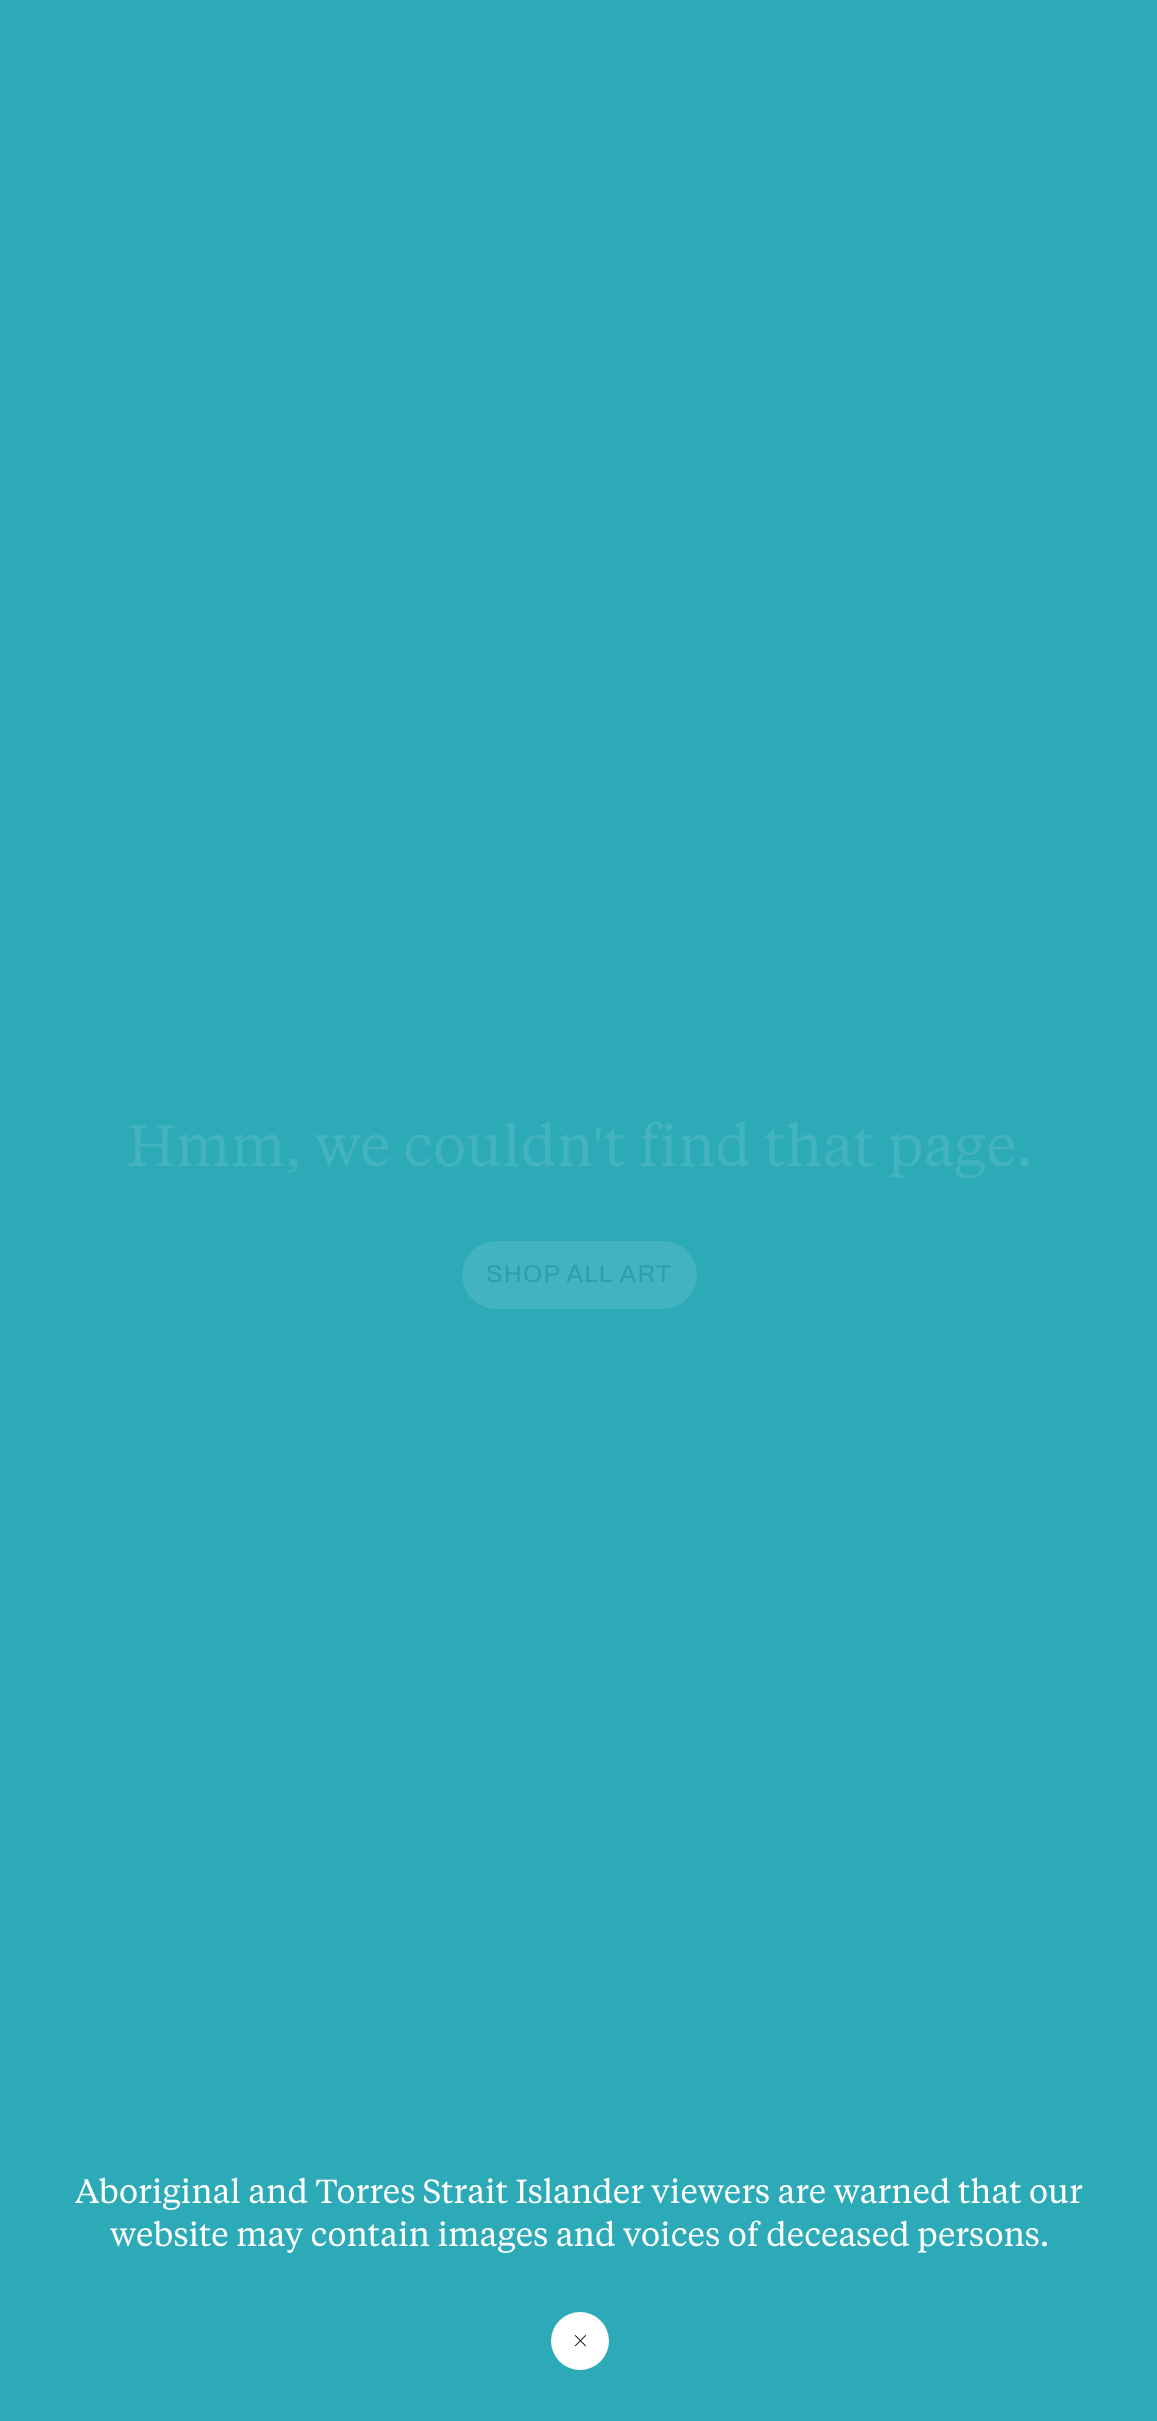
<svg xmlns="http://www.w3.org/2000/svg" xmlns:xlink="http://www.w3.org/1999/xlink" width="1157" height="2421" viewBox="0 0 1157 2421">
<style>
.cls-1{font:58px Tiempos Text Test;fill:#42b3bf}
.cls-2{font:58px Liberation Serif;fill:#42b3bf}
.cls-3{font:24.5px Archivo;letter-spacing:1.25px;fill:#2e9eab}
.cls-4{font:33.25px Tiempos Text Test;fill:#ffffff}
</style>
<rect width="100%" height="100%" fill="#2daab8"/>
<rect fill="#42b3bf" x="462" y="1241" width="235" height="68" rx="34"/>
<circle fill="#ffffff" cx="580" cy="2341" r="29"/>
<image xlink:href="image0.png" x="574" y="2335" width="12" height="12"/>
<text class="cls-1" x="127" y="1166">Hmm, we couldn</text>
<text class="cls-2" x="593" y="1166">'</text>
<text class="cls-1" x="604" y="1166">t find that page.</text>
<text class="cls-3" x="486" y="1282">SHOP ALL ART</text>
<text class="cls-4" x="75" y="2203">Aboriginal and Torres Strait Islander viewers are warned that our</text>
<text class="cls-4" x="110" y="2246">website may contain images and voices of deceased persons.</text>
</svg>
